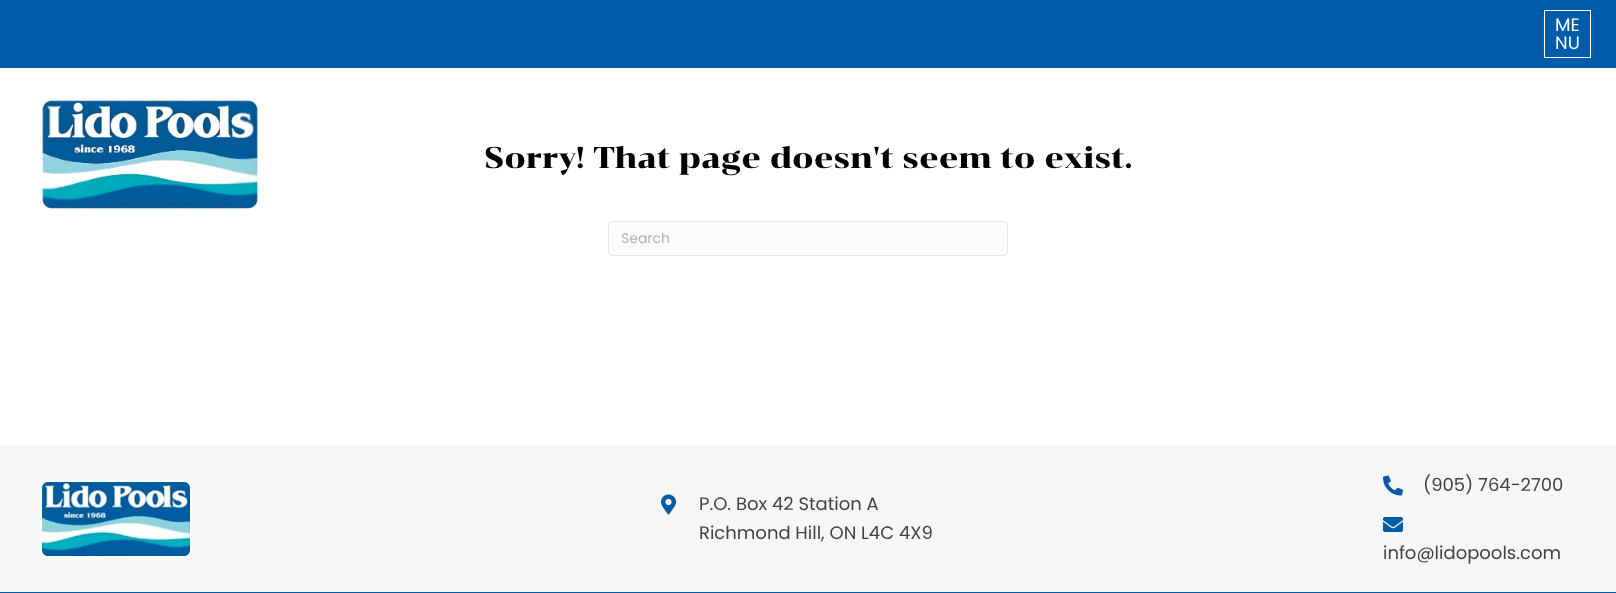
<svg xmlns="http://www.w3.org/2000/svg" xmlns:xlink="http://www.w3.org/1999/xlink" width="1616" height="593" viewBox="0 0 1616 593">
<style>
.cls-1{font:18px Poppins;fill:#ffffff}
.cls-2{font:30px Chonburi;fill:#000000}
.cls-3{font:14px Poppins;fill:#b2b2b2}
.cls-4{font:18px Poppins;fill:#424242}
</style>
<rect width="100%" height="100%" fill="#ffffff"/>
<rect fill="#005ba8" x="0" y="0" width="1616" height="68"/>
<rect fill="none" stroke="#ffffff" x="1544.5" y="10.5" width="46" height="47"/>
<image xlink:href="image0.png" x="40" y="100" width="218" height="110"/>
<rect fill="#fcfcfc" stroke="#e6e6e6" x="608.5" y="221.5" width="399" height="34" rx="3.5"/>
<rect fill="#f6f6f6" x="0" y="446" width="1616" height="146"/>
<image xlink:href="image1.png" x="40" y="480" width="152" height="78"/>
<image xlink:href="image2.png" x="661" y="494" width="15" height="21"/>
<image xlink:href="image3.png" x="1383" y="475" width="20" height="21"/>
<image xlink:href="image4.png" x="1383" y="517" width="20" height="15"/>
<rect fill="#005ba8" x="0" y="592" width="1616" height="1"/>
<text class="cls-1"><tspan x="1555" y="31">ME</tspan><tspan x="1555" y="49">NU</tspan></text>
<text class="cls-2" x="484" y="168">Sorry! That page doesn't seem to exist.</text>
<text class="cls-3" x="621" y="243">Search</text>
<text class="cls-4"><tspan x="699" y="510">P.O. Box 42 Station A</tspan><tspan x="699" y="539">Richmond Hill, ON L4C 4X9</tspan></text>
<text class="cls-4" x="1423" y="491">(905) 764-2700</text>
<text class="cls-4" x="1383" y="559">info@lidopools.com</text>
</svg>
